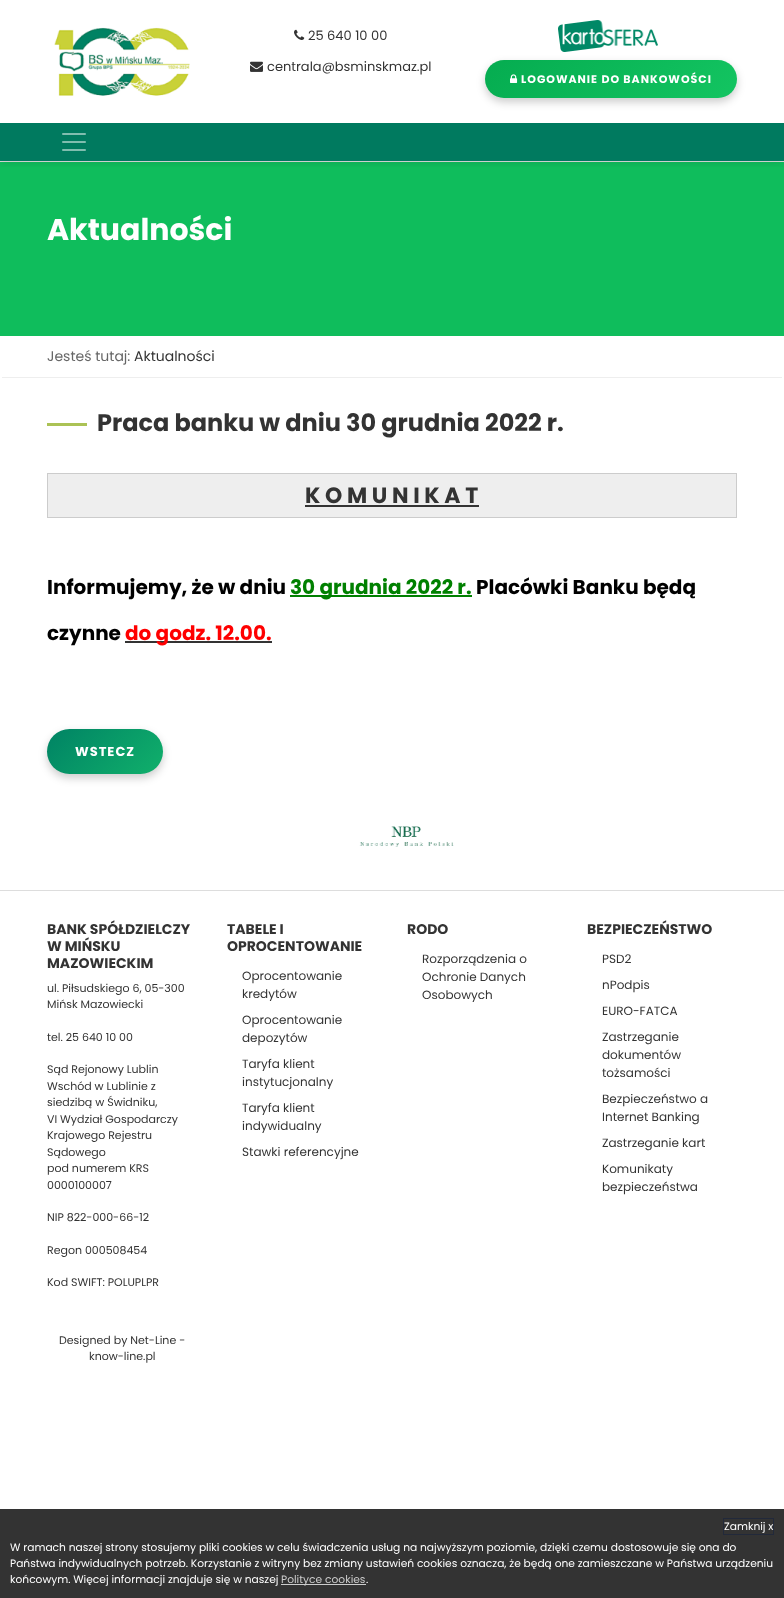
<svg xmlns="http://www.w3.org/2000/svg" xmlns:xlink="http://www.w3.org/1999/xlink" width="784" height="1598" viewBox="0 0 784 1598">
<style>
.cls-1{font:13px Poppins;fill:#333333}
.cls-2{font:bold 11px Poppins;letter-spacing:1px;fill:#ffffff}
.cls-3{font:bold 30px Poppins;fill:#ffffff}
.cls-4{font:14px Poppins;fill:#666666}
.cls-5{font:14px Poppins;fill:#333333}
.cls-6{font:bold 24px Poppins;fill:#333333}
.cls-7{font:bold 22px Poppins;fill:#333333}
.cls-8{font:bold 20px Poppins;fill:#000000}
.cls-9{font:bold 20px Poppins;fill:#008000}
.cls-10{font:bold 20px Poppins;fill:#ff0000}
.cls-11{font:bold 13px Poppins;letter-spacing:1px;fill:#ffffff}
.cls-12{font:bold 14px Poppins;fill:#333333}
.cls-13{font:11px Poppins;fill:#333333}
.cls-14{font:12px Poppins;fill:#333333}
.cls-15{font:10.67px Poppins;fill:#ffffff}
.cls-16{font:10.67px Poppins;fill:#cccccc}
</style>
<defs>
<clipPath id="clip1"><rect x="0" y="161" width="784" height="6"/></clipPath>
<linearGradient id="g1" gradientUnits="userSpaceOnUse" x1="699" y1="-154" x2="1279" y2="426"><stop offset="0" stop-color="#05ac50"/><stop offset="0.5" stop-color="#21dd72"/><stop offset="0.51" stop-color="#05c44e"/><stop offset="0.71" stop-color="#05ac50"/><stop offset="1" stop-color="#05ac50"/></linearGradient>
<linearGradient id="g2" gradientUnits="userSpaceOnUse" x1="118" y1="658" x2="440" y2="980"><stop offset="0" stop-color="#008364"/><stop offset="0.5" stop-color="#21dd72"/><stop offset="0.51" stop-color="#008364"/><stop offset="1" stop-color="#008364"/></linearGradient>
</defs>
<rect width="100%" height="100%" fill="#ffffff"/>
<rect fill="#0fbd5c" x="0" y="162" width="784" height="174"/>
<rect fill="#dddddd" x="0" y="161" width="784" height="1"/>
<g clip-path="url(#clip1)">
<rect fill="#000000" fill-opacity="0.15" filter="blur(5px)" x="0" y="0" width="784" height="161"/>
</g>
<image xlink:href="image0.png" x="54" y="27" width="136" height="69"/>
<image xlink:href="image1.png" x="294" y="29" width="11" height="11"/>
<image xlink:href="image2.png" x="250" y="61" width="13" height="11"/>
<rect fill="#000000" fill-opacity="0.2" filter="blur(4.5px)" x="485" y="64" width="252" height="38" rx="19"/>
<image xlink:href="image3.png" x="558" y="20" width="100" height="32"/>
<rect fill="url(#g1)" x="485" y="60" width="252" height="38" rx="19"/>
<image xlink:href="image4.png" x="510" y="74" width="8" height="9"/>
<rect fill="#007a5f" x="0" y="123" width="784" height="38"/>
<image xlink:href="image5.png" x="62" y="133" width="24" height="18"/>
<rect fill="#eeeeee" x="2" y="377" width="780" height="1"/>
<rect fill="#abc255" x="47" y="423" width="40" height="3"/>
<rect fill="#eeeeee" stroke="#cccccc" x="47.5" y="473.5" width="689" height="44"/>
<rect fill="#333333" x="305" y="505" width="174" height="2"/>
<rect fill="#008000" x="290" y="595" width="182" height="2"/>
<rect fill="#333333" x="125" y="641" width="147" height="2"/>
<rect fill="#000000" fill-opacity="0.2" filter="blur(4.5px)" x="47" y="733" width="116" height="45" rx="22.5"/>
<rect fill="url(#g2)" x="47" y="729" width="116" height="45" rx="22.5"/>
<image xlink:href="image6.png" x="359" y="826" width="95" height="21"/>
<rect fill="#dddddd" x="0" y="890" width="784" height="1"/>
<rect fill="#333333" x="0" y="1509" width="784" height="89"/>
<rect fill="none" stroke="#22293a" x="723.5" y="1518.5" width="50" height="16"/>
<rect fill="#cccccc" x="281" y="1584" width="85" height="1"/>
<text class="cls-1" x="308" y="40">25 640 10 00</text>
<text class="cls-1" x="267" y="71">centrala@bsminskmaz.pl</text>
<text class="cls-2" x="521" y="83">LOGOWANIE DO BANKOWOŚCI</text>
<text class="cls-3" x="47" y="240">Aktualności</text>
<text class="cls-4" x="47" y="361">Jesteś tutaj:</text>
<text class="cls-5" x="134" y="361">Aktualności</text>
<text class="cls-6" x="97" y="431">Praca banku w dniu 30 grudnia 2022 r.</text>
<text class="cls-7" x="305" y="503">K O M U N I K A T</text>
<text class="cls-8" x="47" y="594">Informujemy, że w dniu</text>
<text class="cls-9" x="290" y="594">30 grudnia 2022 r.</text>
<text class="cls-8" x="476" y="594">Placówki Banku będą</text>
<text class="cls-8" x="47" y="640">czynne</text>
<text class="cls-10" x="125" y="640">do godz. 12.00.</text>
<text class="cls-11" x="75" y="756">WSTECZ</text>
<text class="cls-12"><tspan x="47" y="934">BANK SPÓŁDZIELCZY</tspan><tspan x="47" y="951">W MIŃSKU</tspan><tspan x="47" y="968">MAZOWIECKIM</tspan></text>
<text class="cls-13"><tspan x="47" y="992">ul. Piłsudskiego 6, 05-300</tspan><tspan x="47" y="1008">Mińsk Mazowiecki</tspan></text>
<text class="cls-13" x="47" y="1041">tel. 25 640 10 00</text>
<text class="cls-13"><tspan x="47" y="1073">Sąd Rejonowy Lublin</tspan><tspan x="47" y="1090">Wschód w Lublinie z</tspan><tspan x="47" y="1106">siedzibą w Świdniku,</tspan><tspan x="47" y="1123">VI Wydział Gospodarczy</tspan><tspan x="47" y="1139">Krajowego Rejestru</tspan><tspan x="47" y="1156">Sądowego</tspan><tspan x="47" y="1172">pod numerem KRS</tspan><tspan x="47" y="1189">0000100007</tspan></text>
<text class="cls-13" x="47" y="1221">NIP 822-000-66-12</text>
<text class="cls-13" x="47" y="1254">Regon 000508454</text>
<text class="cls-13" x="47" y="1286">Kod SWIFT: POLUPLPR</text>
<text class="cls-12"><tspan x="227" y="934">TABELE I</tspan><tspan x="227" y="951">OPROCENTOWANIE</tspan></text>
<text class="cls-14"><tspan x="242" y="980">Oprocentowanie</tspan><tspan x="242" y="998">kredytów</tspan></text>
<text class="cls-14"><tspan x="242" y="1024">Oprocentowanie</tspan><tspan x="242" y="1042">depozytów</tspan></text>
<text class="cls-14"><tspan x="242" y="1068">Taryfa klient</tspan><tspan x="242" y="1086">instytucjonalny</tspan></text>
<text class="cls-14"><tspan x="242" y="1112">Taryfa klient</tspan><tspan x="242" y="1130">indywidualny</tspan></text>
<text class="cls-14" x="242" y="1156">Stawki referencyjne</text>
<text class="cls-12" x="407" y="934">RODO</text>
<text class="cls-14"><tspan x="422" y="963">Rozporządzenia o</tspan><tspan x="422" y="981">Ochronie Danych</tspan><tspan x="422" y="999">Osobowych</tspan></text>
<text class="cls-12" x="587" y="934">BEZPIECZEŃSTWO</text>
<text class="cls-14" x="602" y="963">PSD2</text>
<text class="cls-14" x="602" y="989">nPodpis</text>
<text class="cls-14" x="602" y="1015">EURO-FATCA</text>
<text class="cls-14"><tspan x="602" y="1041">Zastrzeganie</tspan><tspan x="602" y="1059">dokumentów</tspan><tspan x="602" y="1077">tożsamości</tspan></text>
<text class="cls-14"><tspan x="602" y="1103">Bezpieczeństwo a</tspan><tspan x="602" y="1121">Internet Banking</tspan></text>
<text class="cls-14" x="602" y="1147">Zastrzeganie kart</text>
<text class="cls-14"><tspan x="602" y="1173">Komunikaty</tspan><tspan x="602" y="1191">bezpieczeństwa</tspan></text>
<text class="cls-13" x="59" y="1344">Designed by Net-Line -</text>
<text class="cls-13" x="89" y="1360">know-line.pl</text>
<text class="cls-15" x="724" y="1530">Zamknij x</text>
<text class="cls-15"><tspan x="10" y="1551">W ramach naszej strony stosujemy pliki cookies w celu świadczenia usług na najwyższym poziomie, dzięki czemu dostosowuje się ona do</tspan><tspan x="10" y="1567">Państwa indywidualnych potrzeb. Korzystanie z witryny bez zmiany ustawień cookies oznacza, że będą one zamieszczane w Państwa urządzeniu</tspan><tspan x="10" y="1583">końcowym. Więcej informacji znajduje się w naszej</tspan></text>
<text class="cls-16" x="281" y="1583">Polityce cookies</text>
<text class="cls-15" x="366" y="1583">.</text>
</svg>
